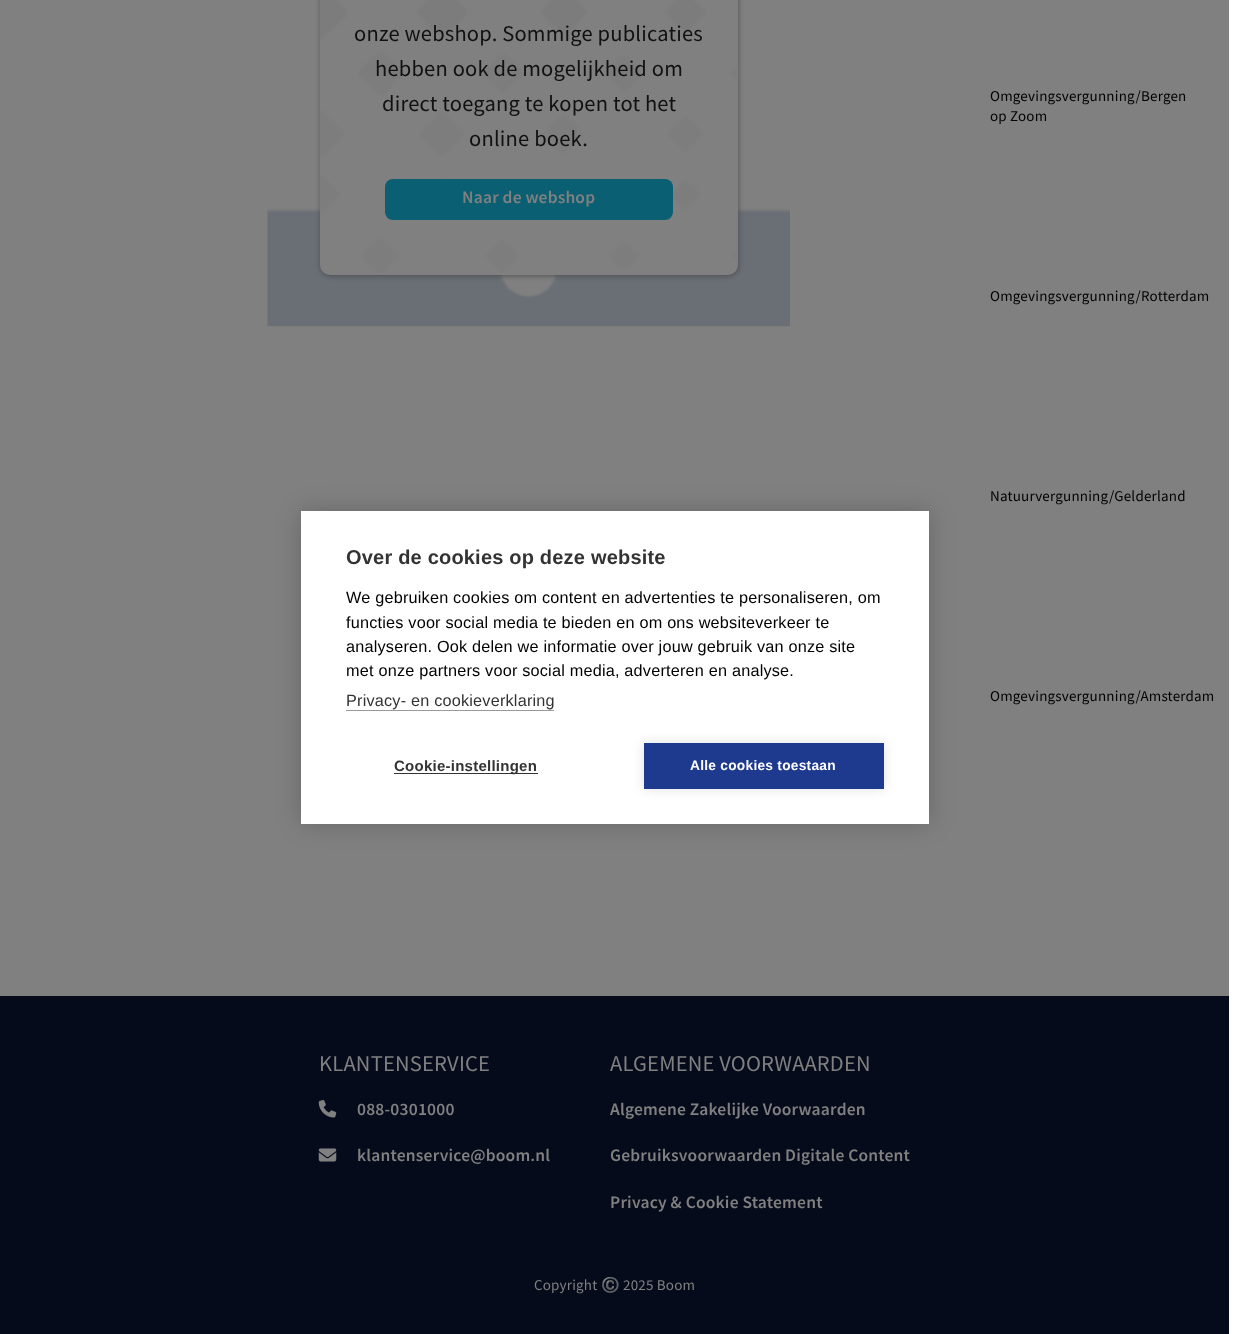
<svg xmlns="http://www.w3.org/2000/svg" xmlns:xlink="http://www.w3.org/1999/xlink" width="1247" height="1334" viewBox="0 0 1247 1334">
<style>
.cls-1{font:22.5px Source Sans Pro;letter-spacing:0.2px;fill:#111111}
.cls-2{font:600 17.5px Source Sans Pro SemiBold;letter-spacing:0.2px;fill:#808080}
.cls-3{font:15px Source Sans Pro;letter-spacing:0.2px;fill:#000000}
.cls-4{font:22.5px Source Sans Pro;letter-spacing:0.2px;fill:#808080}
.cls-5{font:15px Source Sans Pro;letter-spacing:0.2px;fill:#808080}
.cls-6{font:15px Noto Color Emoji;letter-spacing:0.2px;fill:#808080}
.cls-7{font:bold 20px Liberation Sans;letter-spacing:0.2px;fill:#333333}
.cls-8{font:16.25px Liberation Sans;letter-spacing:0.2px;fill:#000000}
.cls-9{font:16.25px Liberation Sans;letter-spacing:0.2px;fill:#333333}
.cls-10{font:bold 15px Liberation Sans;letter-spacing:0.25px;fill:#333333}
.cls-11{font:bold 13.75px Liberation Sans;letter-spacing:0.25px;fill:#ffffff}
</style>
<rect width="100%" height="100%" fill="#ffffff"/>
<rect fill="#808080" x="0" y="0" width="1229" height="996"/>
<image xlink:href="image0.png" x="267" y="4" width="523" height="323"/>
<rect fill="#121212" fill-opacity="0.2" filter="blur(2px)" x="321" y="-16" width="418" height="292" rx="10"/>
<rect fill="#4a4a4a" fill-opacity="0.5" filter="blur(2.5px)" x="320" y="-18" width="418" height="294" rx="10"/>
<rect fill="#808080" x="320" y="-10" width="418" height="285" rx="10"/>
<image xlink:href="image1.png" x="320" y="0" width="417" height="273"/>
<rect fill="#0a5f73" x="385" y="179" width="288" height="41" rx="8"/>
<rect fill="#060b1b" x="0" y="996" width="1229" height="338"/>
<image xlink:href="image2.png" x="318" y="1100" width="19" height="18"/>
<image xlink:href="image3.png" x="318" y="1148" width="19" height="14"/>
<rect fill="#000000" fill-opacity="0.2" filter="blur(12.5px)" x="301" y="511" width="628" height="313"/>
<rect fill="#ffffff" x="301" y="511" width="628" height="313"/>
<rect fill="#999999" x="346" y="710" width="208" height="1"/>
<rect fill="#333333" x="394" y="773" width="144" height="1"/>
<rect fill="#000000" fill-opacity="0.12" filter="blur(6px)" x="644" y="743" width="240" height="46"/>
<rect fill="#1e3a8f" x="644" y="743" width="240" height="46"/>
<text class="cls-1" x="354" y="41">onze webshop. Sommige publicaties</text>
<text class="cls-1" x="375" y="76">hebben ook de mogelijkheid om</text>
<text class="cls-1" x="382" y="111">direct toegang te kopen tot het</text>
<text class="cls-1" x="469" y="146">online boek.</text>
<text class="cls-2" x="462" y="203">Naar de webshop</text>
<text class="cls-3"><tspan x="990" y="101">Omgevingsvergunning/Bergen</tspan><tspan x="990" y="121">op Zoom</tspan></text>
<text class="cls-3" x="990" y="301">Omgevingsvergunning/Rotterdam</text>
<text class="cls-3" x="990" y="501">Natuurvergunning/Gelderland</text>
<text class="cls-3" x="990" y="701">Omgevingsvergunning/Amsterdam</text>
<text class="cls-4" x="319" y="1071">KLANTENSERVICE</text>
<text class="cls-2" x="357" y="1115">088-0301000</text>
<text class="cls-2" x="357" y="1161">klantenservice@boom.nl</text>
<text class="cls-4" x="610" y="1071">ALGEMENE VOORWAARDEN</text>
<text class="cls-2" x="610" y="1115">Algemene Zakelijke Voorwaarden</text>
<text class="cls-2" x="610" y="1161">Gebruiksvoorwaarden Digitale Content</text>
<text class="cls-2" x="610" y="1208">Privacy &amp; Cookie Statement</text>
<text class="cls-5" x="534" y="1290">Copyright</text>
<text class="cls-6" x="601" y="1290">©️</text>
<text class="cls-5" x="623" y="1290">2025 Boom</text>
<text class="cls-7" x="346" y="564">Over de cookies op deze website</text>
<text class="cls-8"><tspan x="346" y="603">We gebruiken cookies om content en advertenties te personaliseren, om</tspan><tspan x="346" y="628">functies voor social media te bieden en om ons websiteverkeer te</tspan><tspan x="346" y="652">analyseren. Ook delen we informatie over jouw gebruik van onze site</tspan><tspan x="346" y="676">met onze partners voor social media, adverteren en analyse.</tspan></text>
<text class="cls-9" x="346" y="706">Privacy- en cookieverklaring</text>
<text class="cls-10" x="394" y="771">Cookie-instellingen</text>
<text class="cls-11" x="690" y="770">Alle cookies toestaan</text>
</svg>
